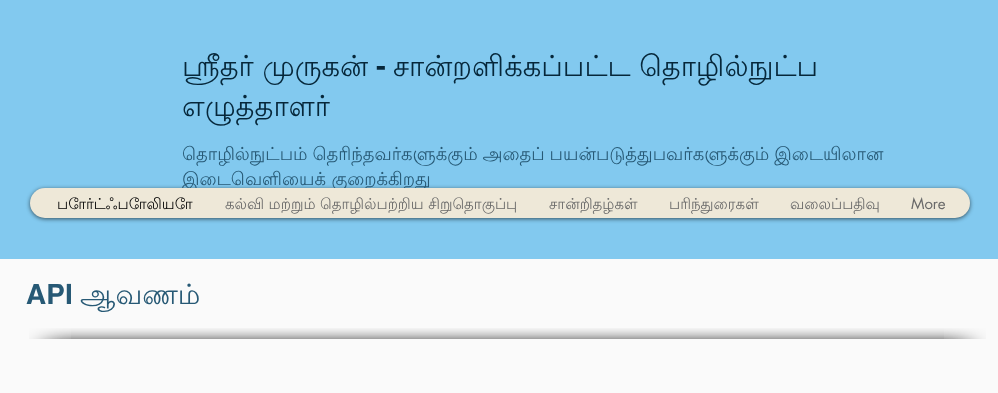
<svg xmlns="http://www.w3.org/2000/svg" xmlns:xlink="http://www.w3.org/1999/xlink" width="998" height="393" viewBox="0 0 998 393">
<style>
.cls-1{font:29px Lohit Tamil;fill:#06273a}
.cls-2{font:bold 29px helvetica;fill:#06273a}
.cls-3{font:18px Lohit Tamil;fill:#275975}
.cls-4{font:15px Lohit Tamil;fill:#000000}
.cls-5{font:15px Lohit Tamil;fill:#696969}
.cls-6{font:15px futura;fill:#696969}
.cls-7{font:bold 28px helvetica;fill:#275975}
.cls-8{font:28px Lohit Tamil;fill:#275975}
</style>
<rect width="100%" height="100%" fill="#fafafa"/>
<rect fill="#82c9ef" x="0" y="0" width="998" height="259"/>
<rect fill="#000000" fill-opacity="0.6" filter="blur(2px)" x="30" y="189" width="940" height="30" rx="15"/>
<image xlink:href="image0.png" x="71" y="328" width="873" height="11"/>
<image xlink:href="image1.png" x="29" y="328" width="42" height="11"/>
<image xlink:href="image2.png" x="944" y="328" width="42" height="11"/>
<text class="cls-1" x="182" y="76">ஸ்ரீதர் முருகன்</text>
<text class="cls-2" x="376" y="76">-</text>
<text class="cls-1" x="393" y="76">சான்றளிக்கப்பட்ட தொழில்நுட்ப</text>
<text class="cls-1" x="182" y="116">எழுத்தாளர்</text>
<text class="cls-3"><tspan x="182" y="160" word-spacing="-0.5">தொழில்நுட்பம் தெரிந்தவர்களுக்கும் அதைப் பயன்படுத்துபவர்களுக்கும் இடையிலான</tspan><tspan x="182" y="185">இடைவெளியைக் குறைக்கிறது</tspan></text>
<rect fill="#eee8d8" x="30" y="188" width="940" height="30" rx="15"/>
<text class="cls-4" x="57" y="209">போர்ட்ஃபோலியோ</text>
<text class="cls-5" x="225" y="209">கல்வி மற்றும் தொழில்பற்றிய சிறுதொகுப்பு</text>
<text class="cls-5" x="549" y="209">சான்றிதழ்கள்</text>
<text class="cls-5" x="669" y="209">பரிந்துரைகள்</text>
<text class="cls-5" x="790" y="209">வலைப்பதிவு</text>
<text class="cls-6" x="911" y="209">More</text>
<text class="cls-7" x="26" y="304">API</text>
<text class="cls-8" x="80" y="304">ஆவணம்</text>
</svg>
